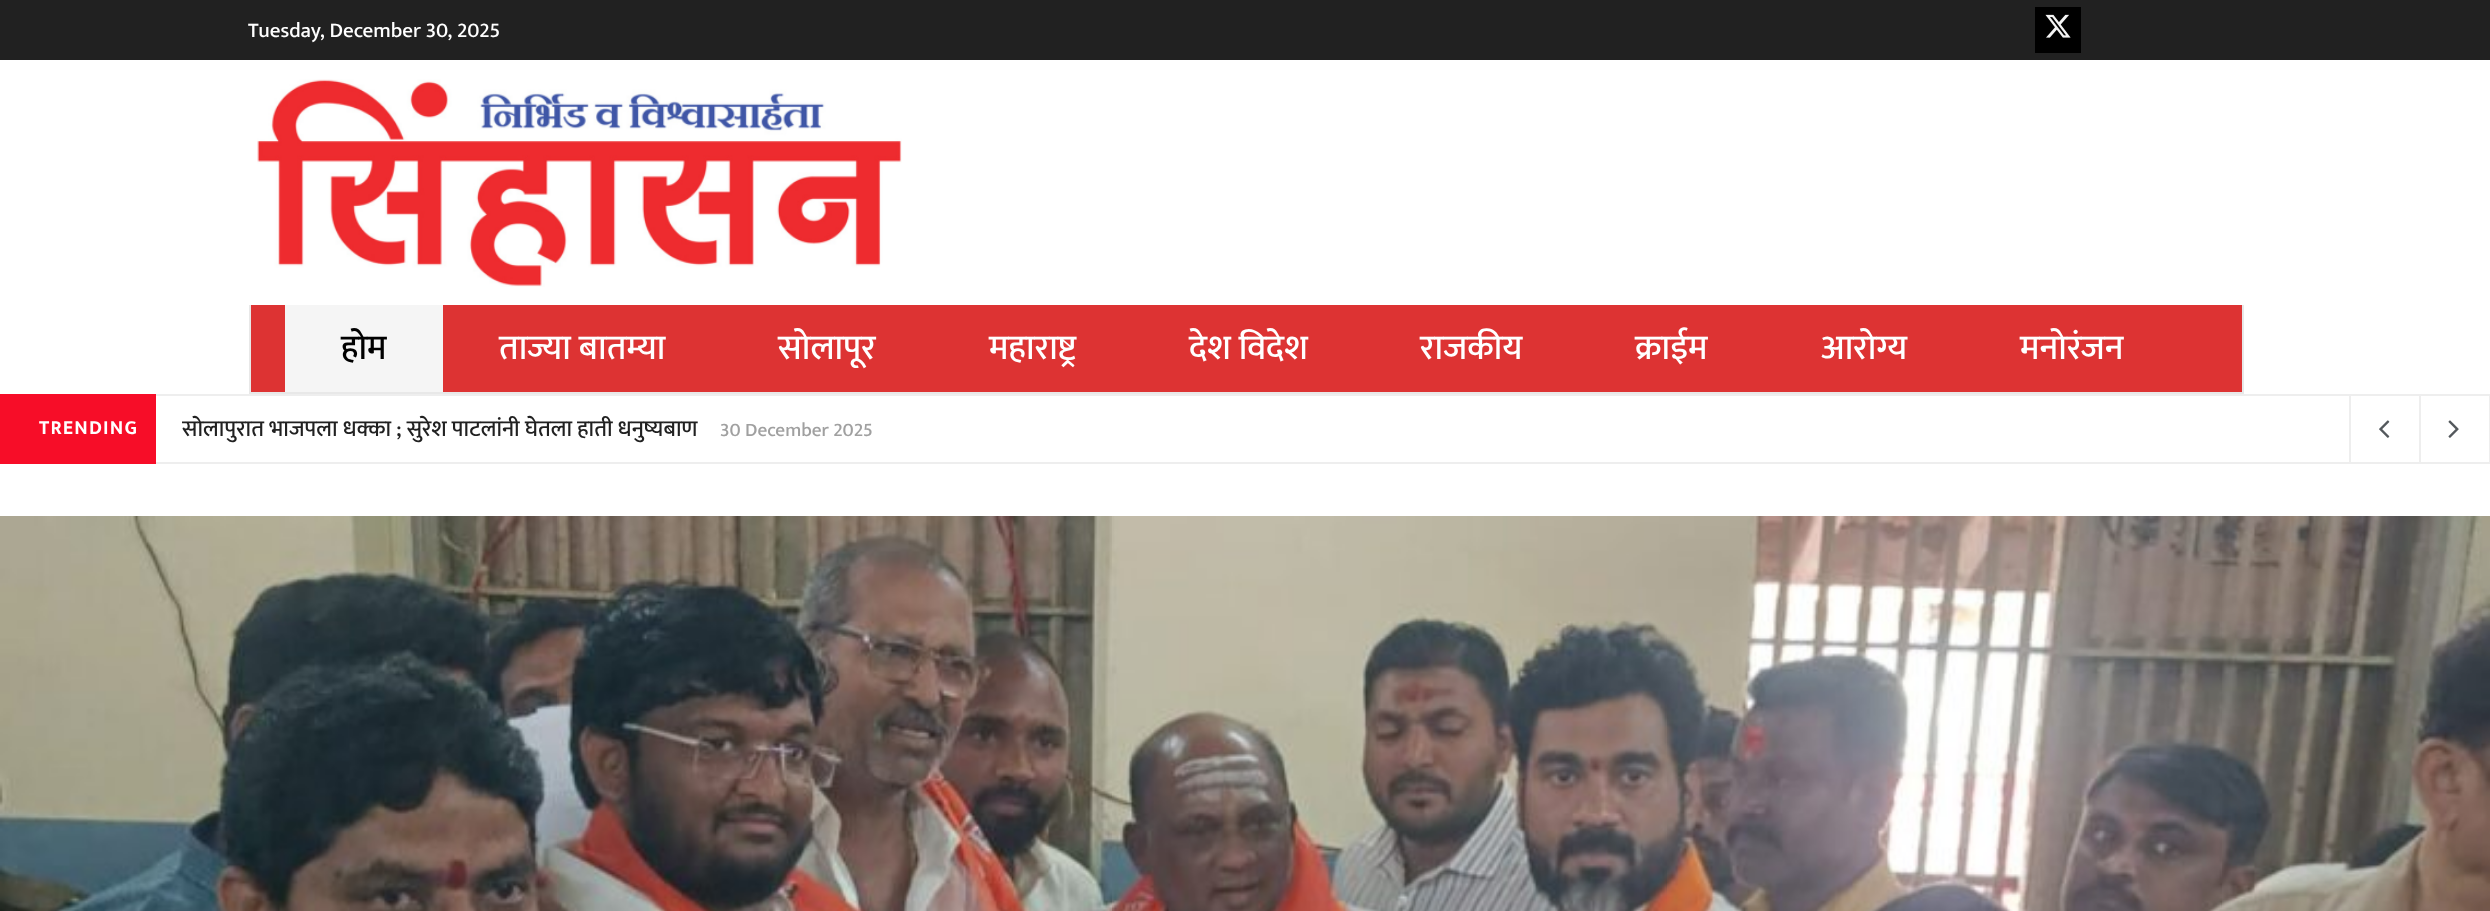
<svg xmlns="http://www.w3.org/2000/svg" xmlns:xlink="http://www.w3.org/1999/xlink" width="2490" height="911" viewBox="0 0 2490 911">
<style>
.cls-1{font:500 21px Mukta;fill:#ffffff}
.cls-2{font:500 35px Mukta;fill:#000000}
.cls-3{font:500 35px Mukta;fill:#ffffff}
.cls-4{font:bold 19.25px Mukta;letter-spacing:1.75px;fill:#ffffff}
.cls-5{font:500 22.75px Mukta;fill:#212121}
.cls-6{font:500 19.25px Mukta;fill:#a0a0a0}
</style>
<defs>
<clipPath id="clip1"><rect x="182" y="396" width="691" height="66"/></clipPath>
</defs>
<rect width="100%" height="100%" fill="#ffffff"/>
<rect fill="#212121" x="0" y="0" width="2490" height="60"/>
<rect fill="#000000" x="2035" y="7" width="46" height="46"/>
<image xlink:href="image0.png" x="2045" y="14" width="26" height="24"/>
<image xlink:href="image1.png" x="257" y="79" width="645" height="208"/>
<rect fill="#dd3333" x="251" y="305" width="1991" height="87"/>
<rect fill="#e8e8e8" x="2242" y="305" width="2" height="89"/>
<rect fill="#e8e8e8" x="249" y="392" width="1995" height="2"/>
<rect fill="#e8e8e8" x="249" y="305" width="2" height="89"/>
<rect fill="#f5f5f5" x="285" y="305" width="158" height="87"/>
<rect fill="#f70d28" x="0" y="394" width="156" height="70"/>
<rect fill="#eeeeee" x="156" y="394" width="2334" height="2"/>
<rect fill="#eeeeee" x="2489" y="394" width="1" height="70"/>
<rect fill="#eeeeee" x="156" y="462" width="2334" height="2"/>
<rect fill="#eeeeee" x="2349" y="396" width="2" height="66"/>
<image xlink:href="image2.png" x="2379" y="420" width="11" height="18"/>
<rect fill="#eeeeee" x="2419" y="396" width="2" height="66"/>
<image xlink:href="image3.png" x="2448" y="420" width="11" height="18"/>
<image xlink:href="image4.png" x="0" y="516" width="2490" height="395"/>
<text class="cls-1" x="248" y="37">Tuesday, December 30, 2025</text>
<text class="cls-2" x="341" y="359">होम</text>
<text class="cls-3" x="499" y="359">ताज्या बातम्या</text>
<text class="cls-3" x="778" y="359">सोलापूर</text>
<text class="cls-3" x="989" y="359">महाराष्ट्र</text>
<text class="cls-3" x="1189" y="359">देश विदेश</text>
<text class="cls-3" x="1420" y="359">राजकीय</text>
<text class="cls-3" x="1635" y="359">क्राईम</text>
<text class="cls-3" x="1821" y="359">आरोग्य</text>
<text class="cls-3" x="2020" y="359">मनोरंजन</text>
<text class="cls-4" x="39" y="434">TRENDING</text>
<g clip-path="url(#clip1)">
<text class="cls-5" x="182" y="436">सोलापुरात भाजपला धक्का ; सुरेश पाटलांनी घेतला हाती धनुष्यबाण</text>
</g>
<text class="cls-6" x="720" y="436">30 December 2025</text>
</svg>
